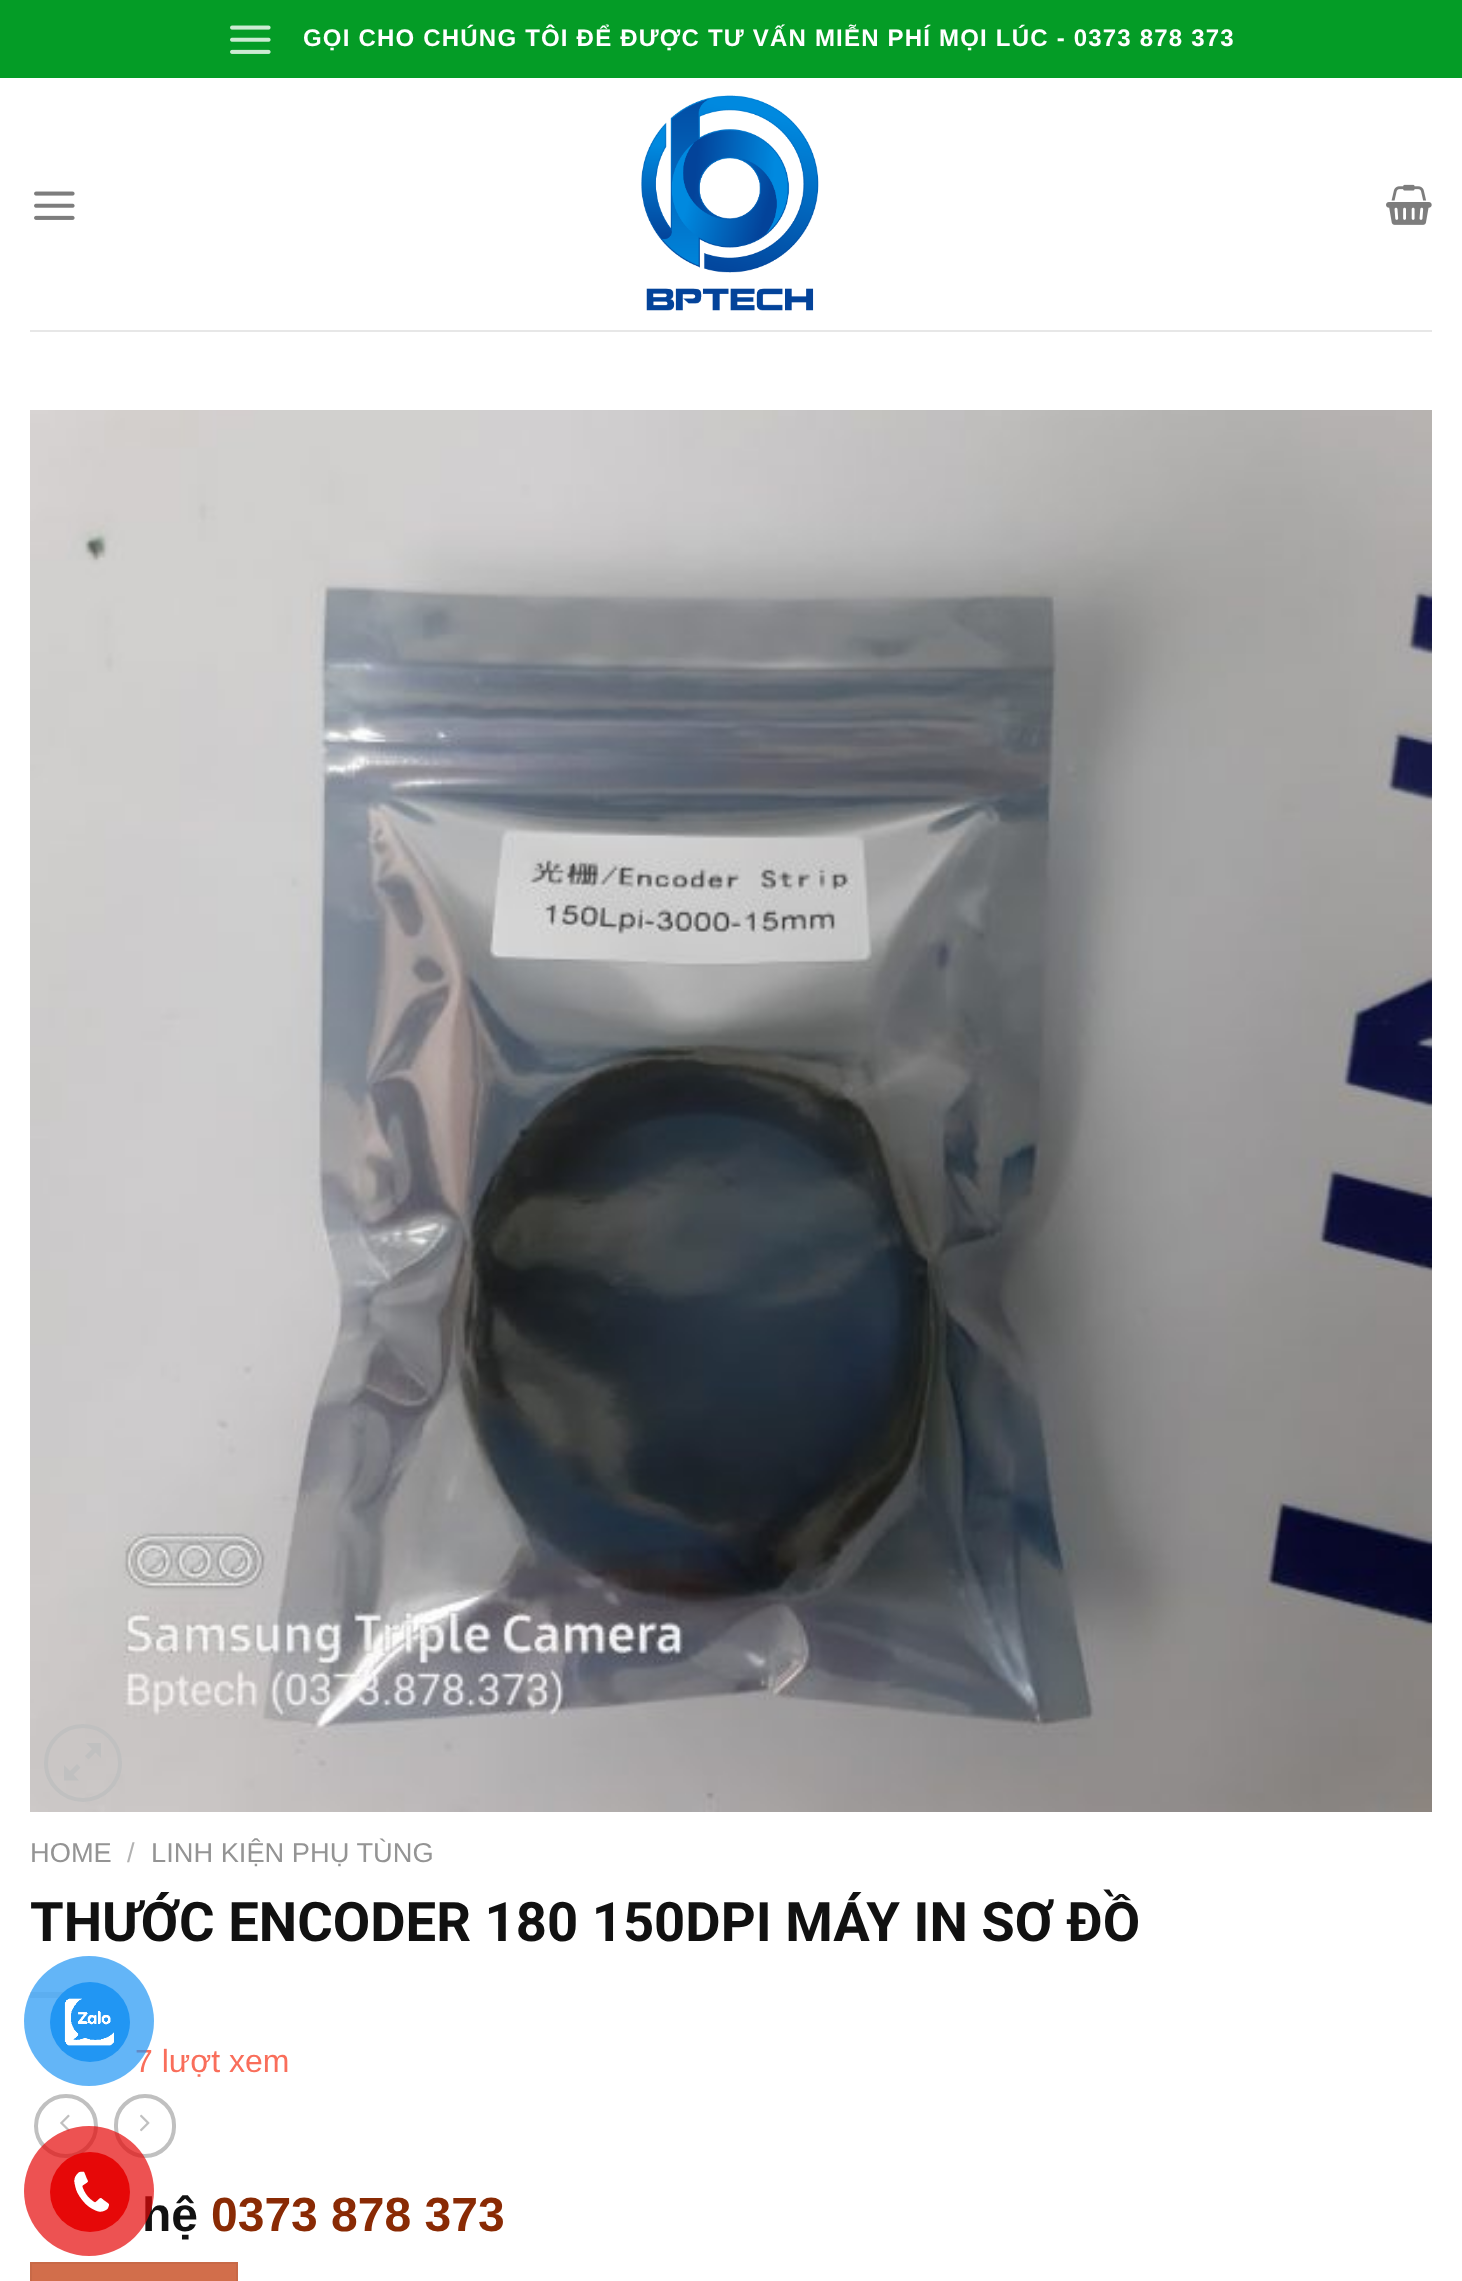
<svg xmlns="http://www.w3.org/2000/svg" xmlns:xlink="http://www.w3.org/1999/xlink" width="1462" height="2281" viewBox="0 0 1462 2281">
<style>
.cls-1{font:bold 24px Liberation Sans;letter-spacing:1.2px;fill:#ffffff}
.cls-2{font:27.25px Liberation Sans;fill:#949494}
.cls-3{font:27.25px Liberation Sans;fill:#b2b2b2}
.cls-4{font:bold 54.4px Roboto;fill:#111111}
.cls-5{font:32px Liberation Sans;fill:#f96e5b}
.cls-6{font:bold 48px Liberation Sans;fill:#111111}
.cls-7{font:bold 48px Liberation Sans;fill:#892a04}
</style>
<rect width="100%" height="100%" fill="#ffffff"/>
<rect fill="#049c26" x="0" y="0" width="1462" height="78"/>
<image xlink:href="image0.png" x="230" y="25" width="41" height="29"/>
<image xlink:href="image1.png" x="34" y="191" width="41" height="29"/>
<image xlink:href="image2.png" x="641" y="95" width="178" height="216"/>
<image xlink:href="image3.png" x="1386" y="184" width="46" height="41"/>
<rect fill="#e7e7e7" x="30" y="330" width="1402" height="2"/>
<image xlink:href="image4.png" x="30" y="410" width="1402" height="1402"/>
<circle fill="none" stroke="#c0c0c0" stroke-width="4" cx="83" cy="1763" r="37"/>
<path fill="#c0c0c0" d="M101 1743V1758L95.5 1752.5L88.5 1759.5L85 1756L92 1749L86 1743ZM80.5 1767.5L73.5 1774.5L79 1780.5H64V1765L70 1771L77 1764Z"/>
<rect fill="#e6e6e6" x="30" y="1992" width="34" height="6"/>
<circle fill="none" stroke="#c0c0c0" stroke-width="4" cx="66" cy="2126" r="30"/>
<image xlink:href="image5.png" x="60" y="2114" width="10" height="18"/>
<rect fill="none" stroke="#c0c0c0" stroke-width="4" x="116" y="2096" width="58" height="60" rx="29"/>
<image xlink:href="image6.png" x="140" y="2114" width="10" height="18"/>
<rect fill="#d26e4b" stroke="#c86947" stroke-width="2" x="31" y="2263" width="206" height="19"/>
<text class="cls-1" x="303" y="46">GỌI CHO CHÚNG TÔI ĐỂ ĐƯỢC TƯ VẤN MIỄN PHÍ MỌI LÚC - 0373 878 373</text>
<text class="cls-2" x="30" y="1862">HOME</text>
<text class="cls-3" x="127" y="1862">/</text>
<text class="cls-2" x="151" y="1862">LINH KIỆN PHỤ TÙNG</text>
<text class="cls-4" x="30" y="1941">THƯỚC ENCODER 180 150DPI MÁY IN SƠ ĐỒ</text>
<text class="cls-5" x="135" y="2072">7 lượt xem</text>
<text class="cls-6" x="142" y="2231">hệ</text>
<text class="cls-7" x="211" y="2231">0373 878 373</text>
<circle fill="#2196f3" fill-opacity="0.7" cx="89" cy="2021" r="65"/>
<circle fill="#2196f3" cx="90" cy="2022" r="40"/>
<image xlink:href="image7.png" x="64" y="1998" width="50" height="48"/>
<circle fill="#e60808" fill-opacity="0.7" cx="89" cy="2191" r="65"/>
<circle fill="#e60808" cx="90" cy="2192" r="40"/>
<image xlink:href="image8.png" x="74" y="2171" width="35" height="41"/>
</svg>
